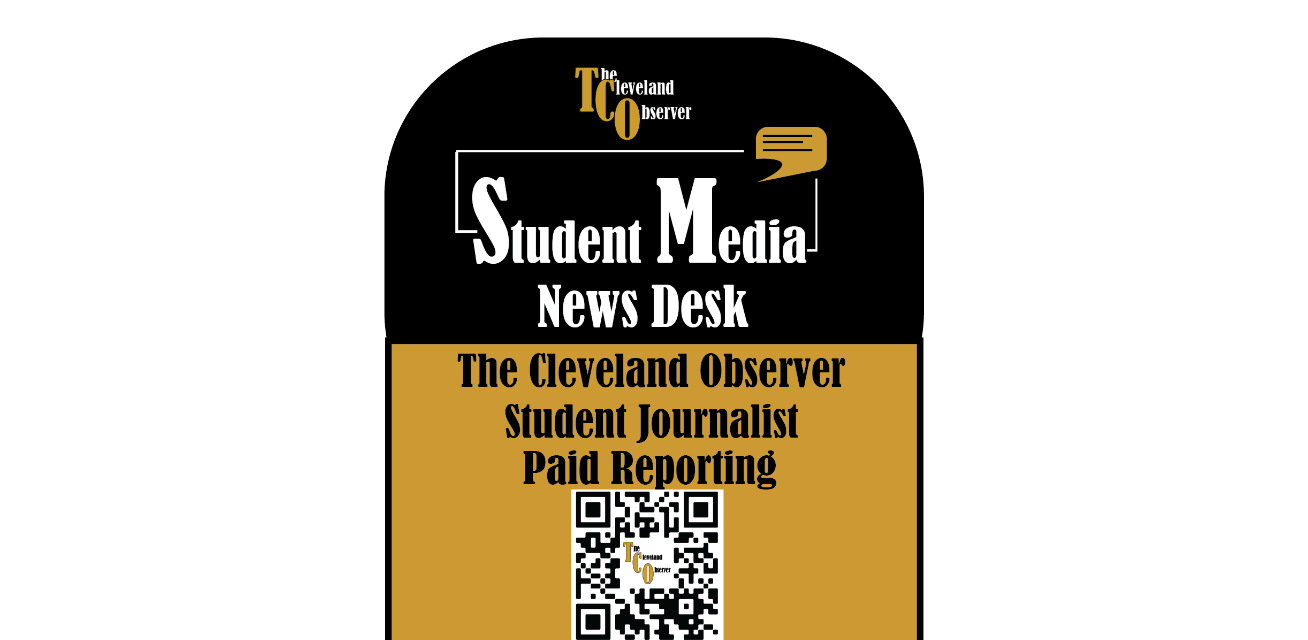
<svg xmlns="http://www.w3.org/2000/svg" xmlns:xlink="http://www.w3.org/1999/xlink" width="1308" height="640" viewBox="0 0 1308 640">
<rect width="100%" height="100%" fill="#ffffff"/>
<image xlink:href="image0.png" x="384" y="37" width="540" height="603"/>
</svg>
